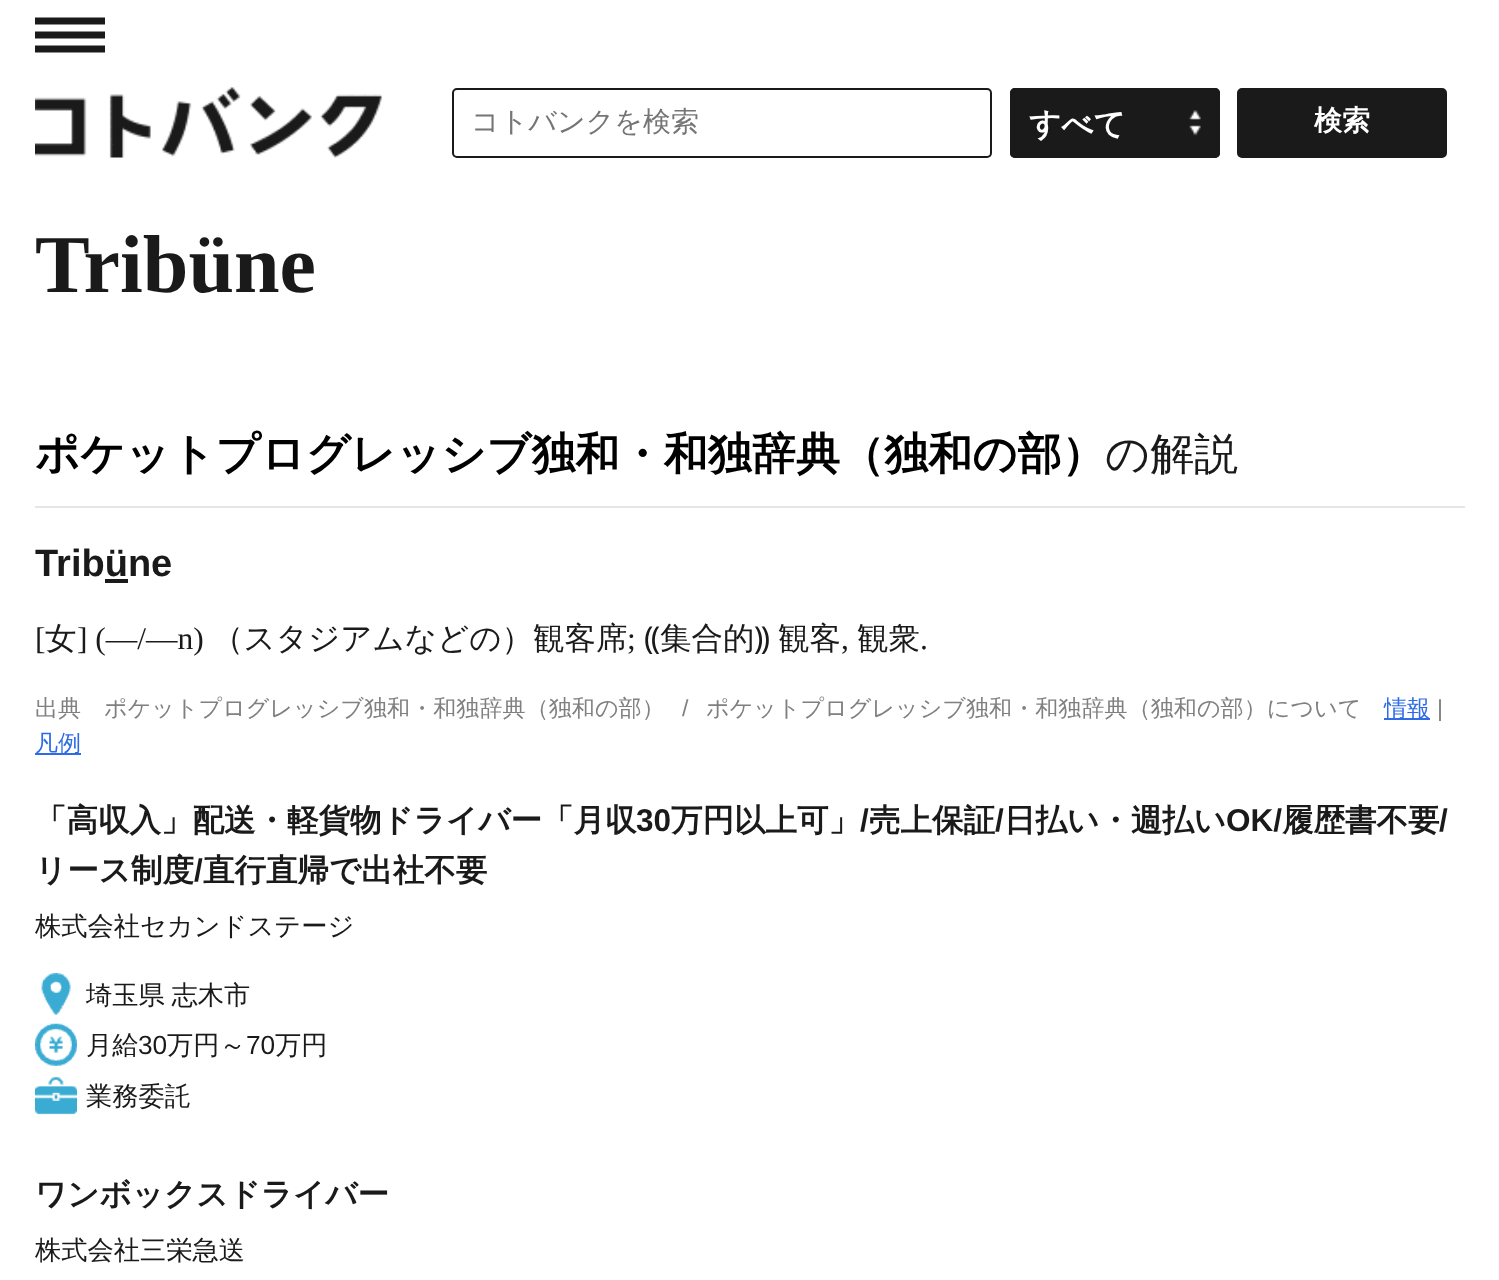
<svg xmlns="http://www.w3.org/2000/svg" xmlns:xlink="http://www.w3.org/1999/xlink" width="1499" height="1280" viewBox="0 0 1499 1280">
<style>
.cls-1{font:500 28px WenQuanYi Zen Hei;fill:#757575}
.cls-2{font:bold 31.5px WenQuanYi Zen Hei;fill:#ffffff}
.cls-3{font:bold 28px WenQuanYi Zen Hei;fill:#ffffff}
.cls-4{font:bold 82px Liberation Serif;fill:#1a1a1a}
.cls-5{font:bold 44.1px WenQuanYi Zen Hei;fill:#000000}
.cls-6{font:500 44.1px WenQuanYi Zen Hei;fill:#1a1a1a}
.cls-7{font:bold 38px Liberation Sans;fill:#1a1a1a}
.cls-8{font:31.5px Liberation Serif;fill:#1a1a1a}
.cls-9{font:500 31.5px WenQuanYi Zen Hei;fill:#1a1a1a}
.cls-10{font:31.5px Noto Sans;fill:#1a1a1a}
.cls-11{font:23.1px Liberation Sans;fill:#808080}
.cls-12{font:500 23.1px WenQuanYi Zen Hei;fill:#808080}
.cls-13{font:500 23.1px WenQuanYi Zen Hei;fill:#2f6be6}
.cls-14{font:bold 31.5px WenQuanYi Zen Hei;fill:#1a1a1a}
.cls-15{font:bold 31.5px Liberation Sans;fill:#1a1a1a}
.cls-16{font:500 26.25px WenQuanYi Zen Hei;fill:#1a1a1a}
.cls-17{font:26.25px Liberation Sans;fill:#1a1a1a}
</style>
<rect width="100%" height="100%" fill="#ffffff"/>
<image xlink:href="image0.png" x="35" y="17" width="70" height="36"/>
<image xlink:href="image1.png" x="35" y="87" width="347" height="71"/>
<rect fill="none" stroke="#1a1a1a" stroke-width="2" x="453" y="89" width="538" height="68" rx="4"/>
<rect fill="#1a1a1a" x="1010" y="88" width="210" height="70" rx="5"/>
<image xlink:href="image2.png" x="1189" y="110" width="12" height="26"/>
<rect fill="none" stroke="#1a1a1a" stroke-width="2" x="1011" y="89" width="208" height="68" rx="4"/>
<rect fill="#1a1a1a" stroke="#1a1a1a" stroke-width="2" x="1238" y="89" width="208" height="68" rx="4"/>
<rect fill="#e6e6e6" x="35" y="506" width="1430" height="2"/>
<rect fill="#1a1a1a" x="105" y="579" width="23" height="4"/>
<rect fill="#2f6be6" x="1384" y="718" width="46" height="2"/>
<rect fill="#2f6be6" x="35" y="753" width="46" height="2"/>
<image xlink:href="image3.png" x="41" y="973" width="30" height="42"/>
<image xlink:href="image4.png" x="35" y="1023" width="42" height="43"/>
<image xlink:href="image5.png" x="35" y="1077" width="42" height="38"/>
<text class="cls-1" x="471" y="131">コトバンクを検索</text>
<text class="cls-2" x="1029" y="135">すべて</text>
<text class="cls-3" x="1314" y="130">検索</text>
<text class="cls-4" x="35" y="292">Tribüne</text>
<text class="cls-5" x="35" y="469">ポケットプログレッシブ独和・和独辞典（独和の部）</text>
<text class="cls-6" x="1105" y="469">の解説</text>
<text class="cls-7" x="35" y="576">Tribüne</text>
<text class="cls-8" x="35" y="649">[</text>
<text class="cls-9" x="45" y="649">女</text>
<text class="cls-8" x="77" y="649">] (―/―n)</text>
<text class="cls-9" x="212" y="649">（スタジアムなどの）観客席</text>
<text class="cls-8" x="627" y="649">;</text>
<text class="cls-10" x="644" y="649">⸨</text>
<text class="cls-9" x="660" y="649">集合的</text>
<text class="cls-10" x="754" y="649">⸩</text>
<text class="cls-9" x="778" y="649">観客</text>
<text class="cls-8" x="841" y="649">,</text>
<text class="cls-9" x="857" y="649">観衆</text>
<text class="cls-8" x="920" y="649">.</text>
<text class="cls-11" x="682" y="716">/</text>
<text class="cls-12" x="706" y="716">ポケットプログレッシブ独和・和独辞典（独和の部）について</text>
<text class="cls-13" x="1384" y="716">情報</text>
<text class="cls-11" x="1437" y="716">|</text>
<text class="cls-13" x="35" y="751">凡例</text>
<text class="cls-12" x="35" y="716">出典</text>
<text class="cls-12" x="104" y="716">ポケットプログレッシブ独和・和独辞典（独和の部）</text>
<text class="cls-14" x="35" y="831">「高収入」配送・軽貨物ドライバー「月収</text>
<text class="cls-15" x="636" y="831">30</text>
<text class="cls-14" x="671" y="831">万円以上可」</text>
<text class="cls-15" x="860" y="831">/</text>
<text class="cls-14" x="869" y="831">売上保証</text>
<text class="cls-15" x="995" y="831">/</text>
<text class="cls-14" x="1004" y="831">日払い・週払い</text>
<text class="cls-15" x="1226" y="831">OK/</text>
<text class="cls-14" x="1282" y="831">履歴書不要</text>
<text class="cls-15" x="1439" y="831">/</text>
<text class="cls-14" x="35" y="881">リース制度</text>
<text class="cls-15" x="194" y="881">/</text>
<text class="cls-14" x="203" y="881">直行直帰で出社不要</text>
<text class="cls-16" x="35" y="935">株式会社セカンドステージ</text>
<text class="cls-16"><tspan x="86" y="1004" word-spacing="-1">埼玉県 志木市</tspan><tspan x="86" y="1054">月給</tspan></text>
<text class="cls-17" x="138" y="1054">30</text>
<text class="cls-16" x="167" y="1054">万円～</text>
<text class="cls-17" x="246" y="1054">70</text>
<text class="cls-16" x="275" y="1054">万円</text>
<text class="cls-16" x="86" y="1105">業務委託</text>
<text class="cls-14" x="35" y="1205">ワンボックスドライバー</text>
<text class="cls-16" x="35" y="1259">株式会社三栄急送</text>
</svg>
